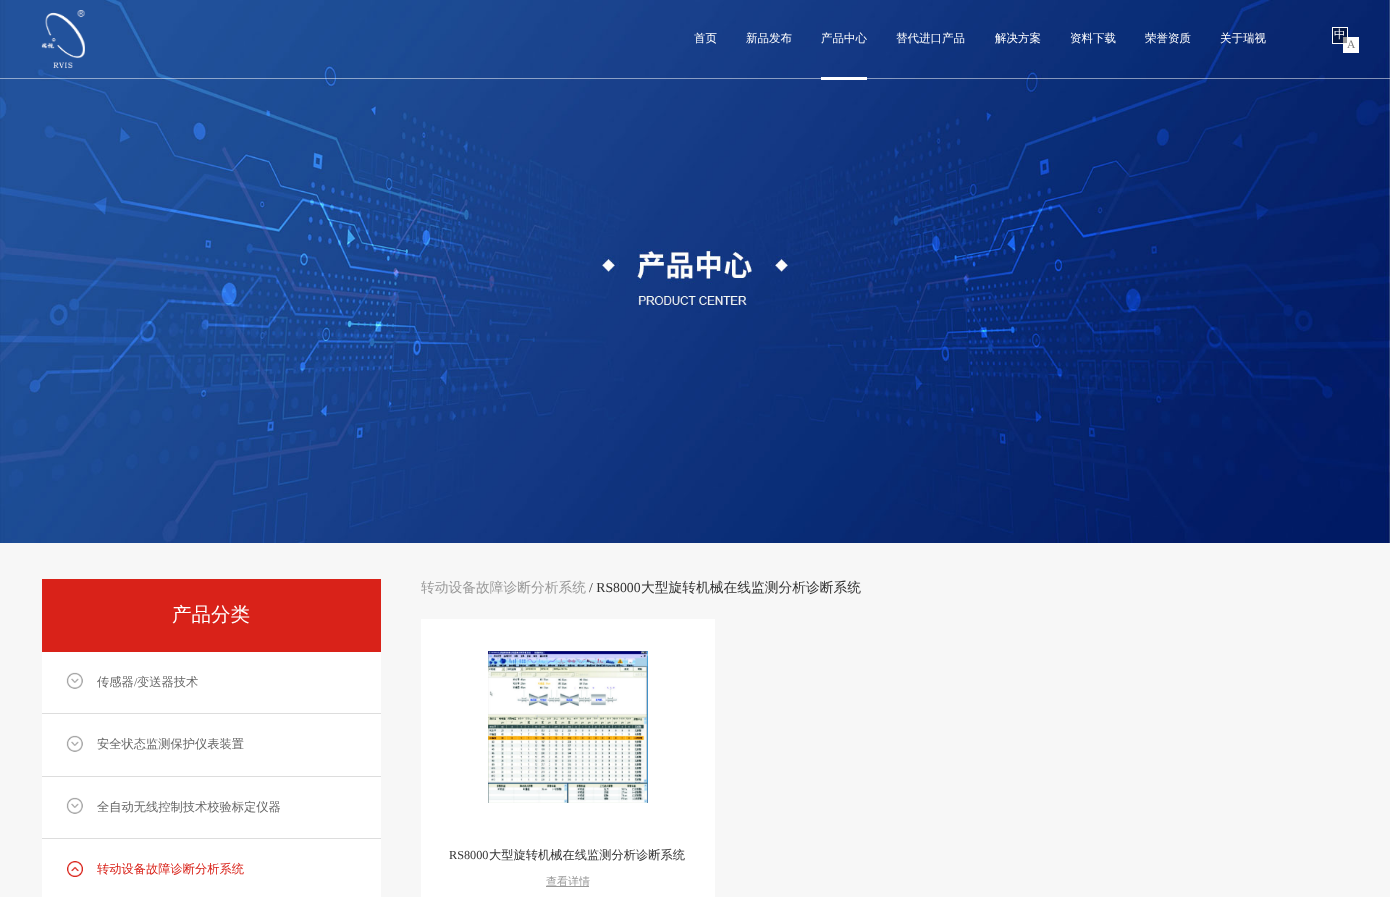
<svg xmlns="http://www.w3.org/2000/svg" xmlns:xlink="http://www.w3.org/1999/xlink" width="1390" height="897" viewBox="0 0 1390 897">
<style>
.cls-1{font:500 11.5px WenQuanYi Zen Hei;fill:#ffffff}
.cls-2{font:11.5px Liberation Serif;fill:#808080}
.cls-3{font:500 19.5px WenQuanYi Zen Hei;fill:#ffffff}
.cls-4{font:500 12.25px WenQuanYi Zen Hei;fill:#666666}
.cls-5{font:12.25px Liberation Serif;fill:#666666}
.cls-6{font:500 12.25px WenQuanYi Zen Hei;fill:#d92219}
.cls-7{font:500 13.75px WenQuanYi Zen Hei;fill:#999999}
.cls-8{font:13.75px Liberation Serif;fill:#333333}
.cls-9{font:500 13.75px WenQuanYi Zen Hei;fill:#333333}
.cls-10{font:12.25px Liberation Serif;fill:#333333}
.cls-11{font:500 12.25px WenQuanYi Zen Hei;fill:#333333}
.cls-12{font:500 11px WenQuanYi Zen Hei;fill:#999999}
</style>
<rect width="100%" height="100%" fill="#f7f7f7"/>
<image xlink:href="image0.png" x="0" y="0" width="1390" height="543"/>
<rect fill="#ffffff" fill-opacity="0.5" x="0" y="78" width="1390" height="1"/>
<image xlink:href="image1.png" x="41" y="10" width="44" height="59"/>
<rect fill="#ffffff" x="821" y="77" width="46" height="3"/>
<rect fill="#ffffff" x="1343" y="37" width="16" height="16"/>
<rect fill="#ffffff" x="42" y="652" width="339" height="245"/>
<rect fill="#d92219" x="42" y="579" width="339" height="73"/>
<rect fill="#dddddd" x="42" y="713" width="339" height="1"/>
<image xlink:href="image2.png" x="66" y="672" width="17" height="17"/>
<rect fill="#dddddd" x="42" y="776" width="339" height="1"/>
<image xlink:href="image2.png" x="66" y="735" width="17" height="17"/>
<rect fill="#dddddd" x="42" y="838" width="339" height="1"/>
<image xlink:href="image2.png" x="66" y="797" width="17" height="17"/>
<image xlink:href="image3.png" x="67" y="861" width="16" height="16"/>
<rect fill="#ffffff" x="421" y="619" width="294" height="278"/>
<image xlink:href="image4.png" x="488" y="651" width="160" height="152"/>
<rect fill="#999999" x="546" y="886" width="43" height="1"/>
<text class="cls-1" x="694" y="42">首页</text>
<text class="cls-1" x="746" y="42">新品发布</text>
<text class="cls-1" x="821" y="42">产品中心</text>
<text class="cls-1" x="896" y="42">替代进口产品</text>
<text class="cls-1" x="995" y="42">解决方案</text>
<text class="cls-1" x="1070" y="42">资料下载</text>
<text class="cls-1" x="1145" y="42">荣誉资质</text>
<text class="cls-1" x="1220" y="42">关于瑞视</text>
<text class="cls-2" x="1347" y="48">A</text>
<rect fill="#000000" fill-opacity="0.4" stroke="#ffffff" x="1332.5" y="27.5" width="15" height="16"/>
<text class="cls-1" x="1334" y="38">中</text>
<text class="cls-3" x="172" y="621">产品分类</text>
<text class="cls-4" x="97" y="686">传感器</text>
<text class="cls-5" x="134" y="686">/</text>
<text class="cls-4" x="137" y="686">变送器技术</text>
<text class="cls-4" x="97" y="748">安全状态监测保护仪表装置</text>
<text class="cls-4" x="97" y="811">全自动无线控制技术校验标定仪器</text>
<text class="cls-6" x="97" y="873">转动设备故障诊断分析系统</text>
<text class="cls-7" x="421" y="592">转动设备故障诊断分析系统</text>
<text class="cls-8" x="589" y="592">/ RS8000</text>
<text class="cls-9" x="641" y="592">大型旋转机械在线监测分析诊断系统</text>
<text class="cls-10" x="449" y="859">RS8000</text>
<text class="cls-11" x="489" y="859">大型旋转机械在线监测分析诊断系统</text>
<text class="cls-12" x="546" y="885">查看详情</text>
</svg>
